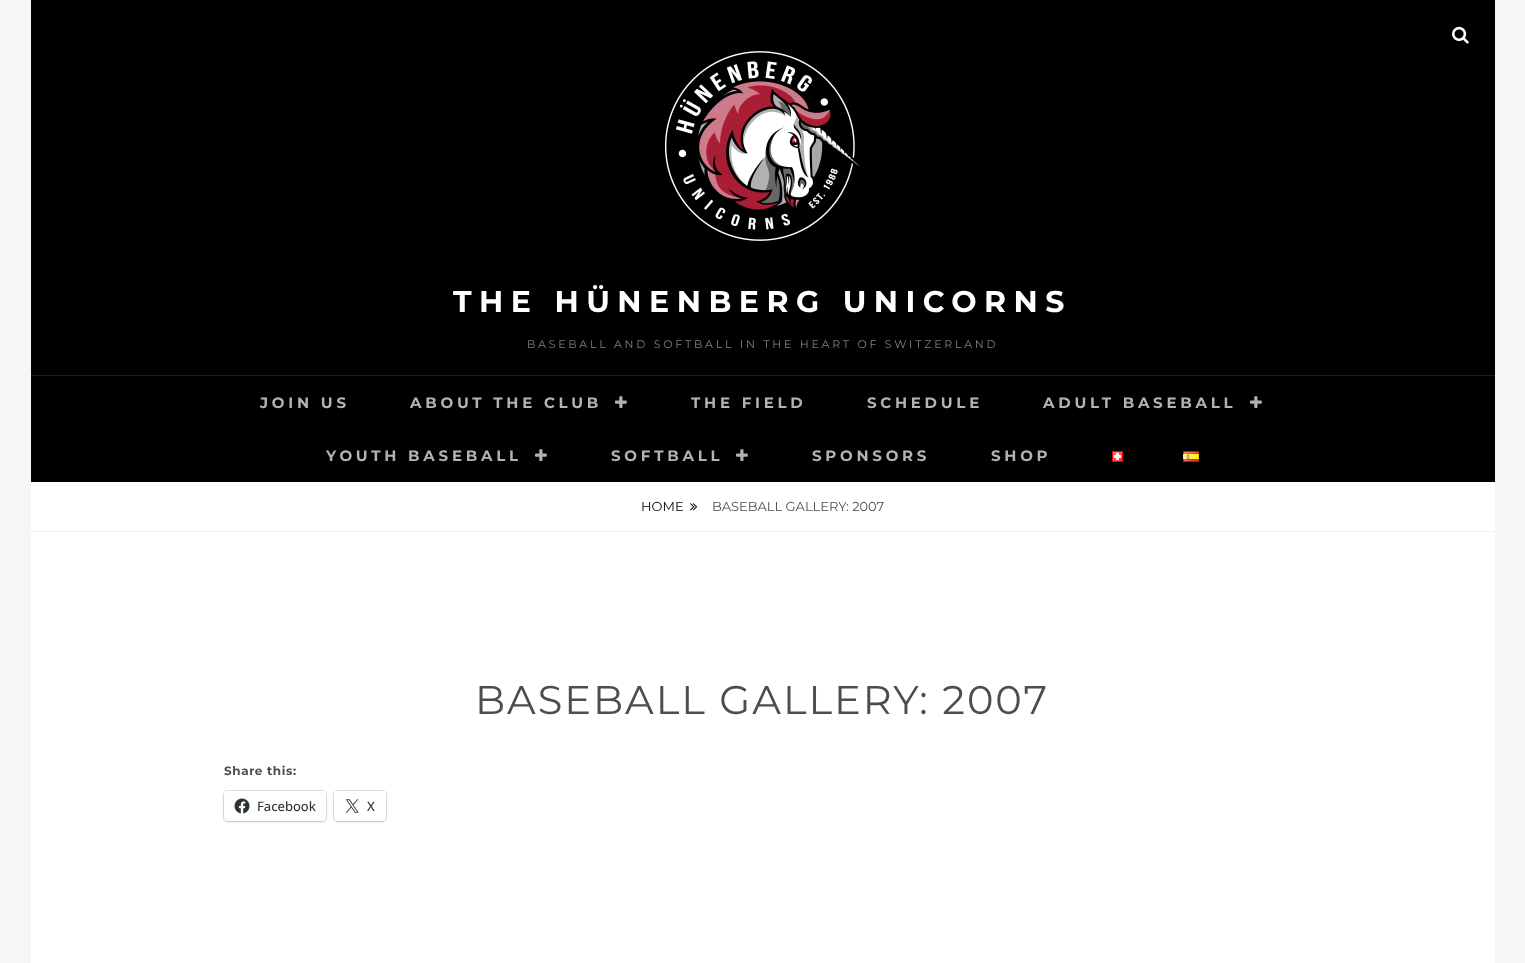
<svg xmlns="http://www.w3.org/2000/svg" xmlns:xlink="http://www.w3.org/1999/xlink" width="1525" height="963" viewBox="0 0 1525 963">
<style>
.cls-1{font:bold 30px Montserrat;letter-spacing:7.5px;fill:#ffffff}
.cls-2{font:11px Montserrat;letter-spacing:2.75px;fill:#808080}
.cls-3{font:bold 15px Montserrat;letter-spacing:3.75px;fill:#b3b3b3}
.cls-4{font:13px Montserrat;fill:#000000}
.cls-5{font:13px Montserrat;fill:#4d4d4d}
.cls-6{font:40px Montserrat;letter-spacing:2px;fill:#4d4d4d}
.cls-7{font:bold 12px Montserrat;letter-spacing:0.6px;fill:#4d4d4d}
.cls-8{font:500 13px Open Sans;fill:#2c3338}
</style>
<rect width="100%" height="100%" fill="#f6f6f6"/>
<rect fill="#ffffff" x="31" y="482" width="1464" height="481"/>
<rect fill="#000000" x="31" y="0" width="1464" height="482"/>
<image xlink:href="image0.png" x="1452" y="26" width="17" height="18"/>
<image xlink:href="image1.png" x="664" y="51" width="196" height="190"/>
<rect fill="#1f1f1f" x="31" y="375" width="1464" height="1"/>
<image xlink:href="image2.png" x="615" y="396" width="12" height="12"/>
<image xlink:href="image2.png" x="1250" y="396" width="12" height="12"/>
<image xlink:href="image2.png" x="535" y="449" width="12" height="12"/>
<image xlink:href="image2.png" x="736" y="449" width="12" height="12"/>
<image xlink:href="image3.png" x="1112" y="451" width="11" height="11"/>
<image xlink:href="image4.png" x="1183" y="451" width="16" height="11"/>
<rect fill="#f2f2f2" x="31" y="531" width="1464" height="1"/>
<image xlink:href="image5.png" x="690" y="503" width="8" height="8"/>
<rect fill="none" stroke="#e0e0e0" x="223.5" y="790.5" width="103" height="31" rx="4.5"/>
<rect fill="#000000" fill-opacity="0.12" filter="blur(1px)" x="224" y="792" width="102" height="30" rx="4"/>
<rect fill="#ffffff" x="224" y="791" width="102" height="30" rx="4"/>
<image xlink:href="image6.png" x="234" y="798" width="16" height="16"/>
<rect fill="none" stroke="#e0e0e0" x="333.5" y="790.5" width="53" height="31" rx="4.5"/>
<rect fill="#000000" fill-opacity="0.12" filter="blur(1px)" x="334" y="792" width="52" height="30" rx="4"/>
<rect fill="#ffffff" x="334" y="791" width="52" height="30" rx="4"/>
<image xlink:href="image7.png" x="345" y="799" width="14" height="14"/>
<text class="cls-1" x="453" y="312">THE HÜNENBERG UNICORNS</text>
<text class="cls-2" x="527" y="348">BASEBALL AND SOFTBALL IN THE HEART OF SWITZERLAND</text>
<text class="cls-3" x="260" y="408">JOIN US</text>
<text class="cls-3" x="410" y="408">ABOUT THE CLUB</text>
<text class="cls-3" x="691" y="408">THE FIELD</text>
<text class="cls-3" x="867" y="408">SCHEDULE</text>
<text class="cls-3" x="1043" y="408">ADULT BASEBALL</text>
<text class="cls-3" x="326" y="461">YOUTH BASEBALL</text>
<text class="cls-3" x="611" y="461">SOFTBALL</text>
<text class="cls-3" x="812" y="461">SPONSORS</text>
<text class="cls-3" x="991" y="461">SHOP</text>
<text class="cls-4" x="641" y="511">HOME</text>
<text class="cls-5" x="712" y="511">BASEBALL GALLERY: 2007</text>
<text class="cls-6" x="475" y="714">BASEBALL GALLERY: 2007</text>
<text class="cls-7" x="224" y="775">Share this:</text>
<text class="cls-8" x="257" y="811">Facebook</text>
<text class="cls-8" x="367" y="811">X</text>
</svg>
